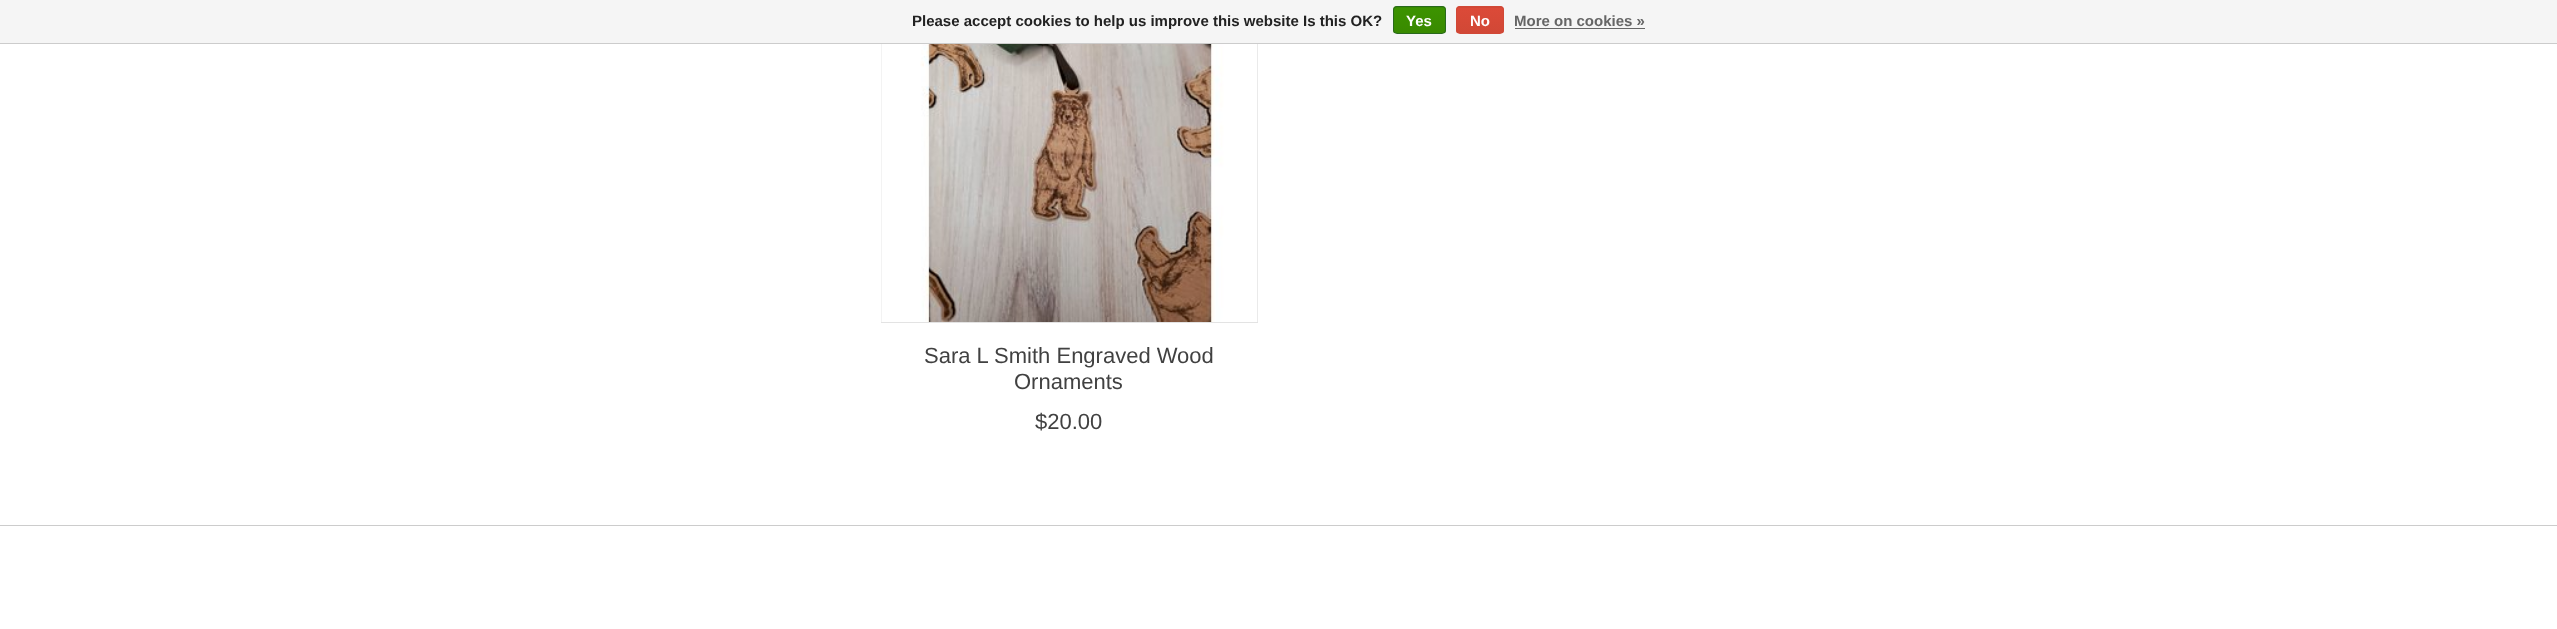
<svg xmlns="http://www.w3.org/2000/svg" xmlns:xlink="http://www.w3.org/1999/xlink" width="2557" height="629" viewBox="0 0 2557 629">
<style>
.cls-1{font:bold 15px Liberation Sans;fill:#222222}
.cls-2{font:bold 15px Liberation Sans;fill:#ffffff}
.cls-3{font:bold 15px Liberation Sans;fill:#666666}
.cls-4{font:22px Arimo;fill:#414141}
</style>
<defs>
<clipPath id="clip1"><rect x="1393" y="6" width="53" height="28" rx="4"/></clipPath>
<linearGradient id="g1" gradientUnits="userSpaceOnUse" x1="1419" y1="-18" x2="1419" y2="7.5"><stop offset="0" stop-color="#3c9300"/><stop offset="1" stop-color="#398a00"/></linearGradient>
<linearGradient id="g2" gradientUnits="userSpaceOnUse" x1="1419" y1="7.5" x2="1419" y2="33"><stop offset="0" stop-color="#3c9300"/><stop offset="1" stop-color="#398a00"/></linearGradient>
<clipPath id="clip2"><rect x="1456" y="6" width="48" height="28" rx="4"/></clipPath>
<linearGradient id="g3" gradientUnits="userSpaceOnUse" x1="1480" y1="-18" x2="1480" y2="7.5"><stop offset="0" stop-color="#dc4a38"/><stop offset="1" stop-color="#d14836"/></linearGradient>
<linearGradient id="g4" gradientUnits="userSpaceOnUse" x1="1480" y1="7.5" x2="1480" y2="33"><stop offset="0" stop-color="#dc4a38"/><stop offset="1" stop-color="#d14836"/></linearGradient>
</defs>
<rect width="100%" height="100%" fill="#ffffff"/>
<rect fill="#f5f5f5" x="0" y="0" width="2557" height="43"/>
<rect fill="#cccccc" x="0" y="43" width="2557" height="1"/>
<g clip-path="url(#clip1)">
<rect fill="url(#g1)" x="1393" y="6" width="53" height="2"/>
<rect fill="url(#g2)" x="1393" y="8" width="53" height="25"/>
</g>
<rect fill="none" stroke="#29691d" x="1393.5" y="6.5" width="52" height="27" rx="3.5"/>
<g clip-path="url(#clip2)">
<rect fill="url(#g3)" x="1456" y="6" width="48" height="2"/>
<rect fill="url(#g4)" x="1456" y="8" width="48" height="25"/>
</g>
<rect fill="none" stroke="#d14836" x="1456.5" y="6.5" width="47" height="27" rx="3.5"/>
<rect fill="#666666" x="1515" y="28" width="130" height="1"/>
<rect fill="#e3e3e3" x="881" y="44" width="377" height="279"/>
<image xlink:href="image0.png" x="881" y="44" width="377" height="278"/>
<rect fill="#cccccc" x="0" y="525" width="2557" height="1"/>
<text class="cls-1" x="912" y="26">Please accept cookies to help us improve this website Is this OK?</text>
<text class="cls-2" x="1406" y="26">Yes</text>
<text class="cls-2" x="1470" y="26">No</text>
<text class="cls-3" x="1514" y="26">More on cookies »</text>
<text class="cls-4" x="924" y="363">Sara L Smith Engraved Wood</text>
<text class="cls-4" x="1014" y="389">Ornaments</text>
<text class="cls-4" x="1035" y="429">$20.00</text>
</svg>
